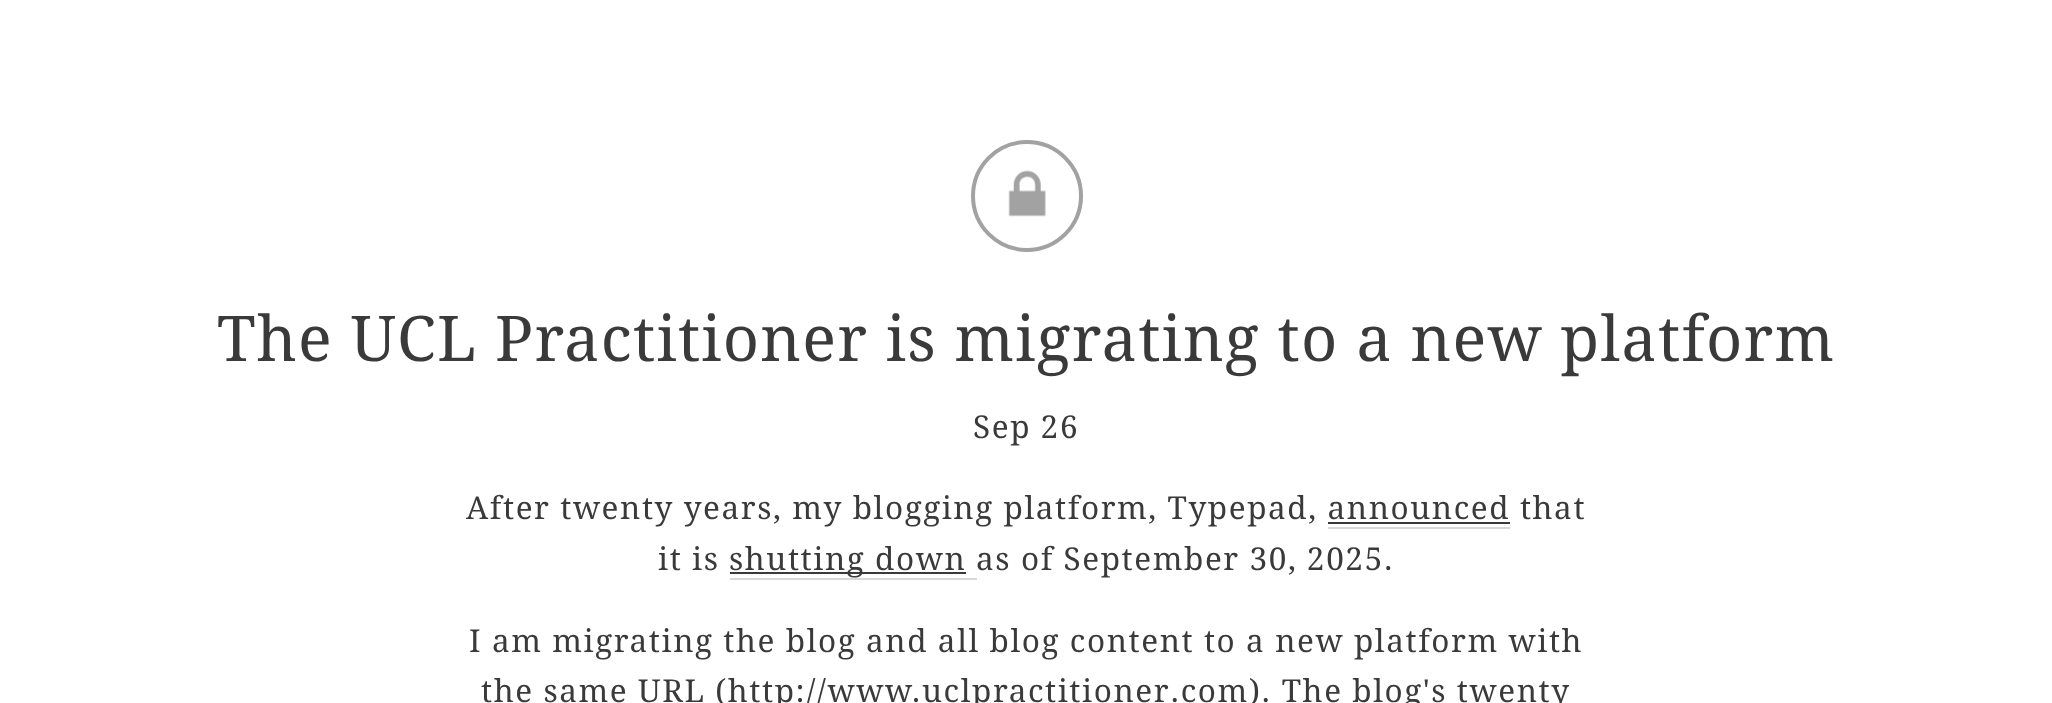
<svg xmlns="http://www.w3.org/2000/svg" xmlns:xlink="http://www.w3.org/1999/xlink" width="2052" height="703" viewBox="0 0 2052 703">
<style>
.cls-1{font:63px Droid Serif;letter-spacing:1.25px;fill:#3a3a3a}
.cls-2{font:31.5px Droid Serif;letter-spacing:1.57px;fill:#3a3a3a}
</style>
<rect width="100%" height="100%" fill="#ffffff"/>
<circle fill="none" stroke="#a2a2a2" stroke-width="4" cx="1027" cy="196" r="54"/>
<image xlink:href="image0.png" x="1008" y="170" width="38" height="47"/>
<rect fill="#3a3a3a" x="1328" y="522" width="182" height="2"/>
<rect fill="#d8d8d8" x="1328" y="527" width="182" height="2"/>
<rect fill="#d8d8d8" x="730" y="578" width="247" height="2"/>
<rect fill="#3a3a3a" x="730" y="572" width="236" height="2"/>
<text class="cls-1" x="217" y="361">The UCL Practitioner is migrating to a new platform</text>
<text class="cls-2" x="973" y="438">Sep 26</text>
<text class="cls-2" x="466" y="519">After twenty years, my blogging platform, Typepad, announced that</text>
<text class="cls-2" x="658" y="570">it is</text>
<text class="cls-2" x="729" y="570">shutting down as of September 30, 2025.</text>
<text class="cls-2" x="469" y="652">I am migrating the blog and all blog content to a new platform with</text>
<text class="cls-2" x="481" y="702">the same URL (http://www.uclpractitioner.com). The blog's twenty</text>
</svg>
